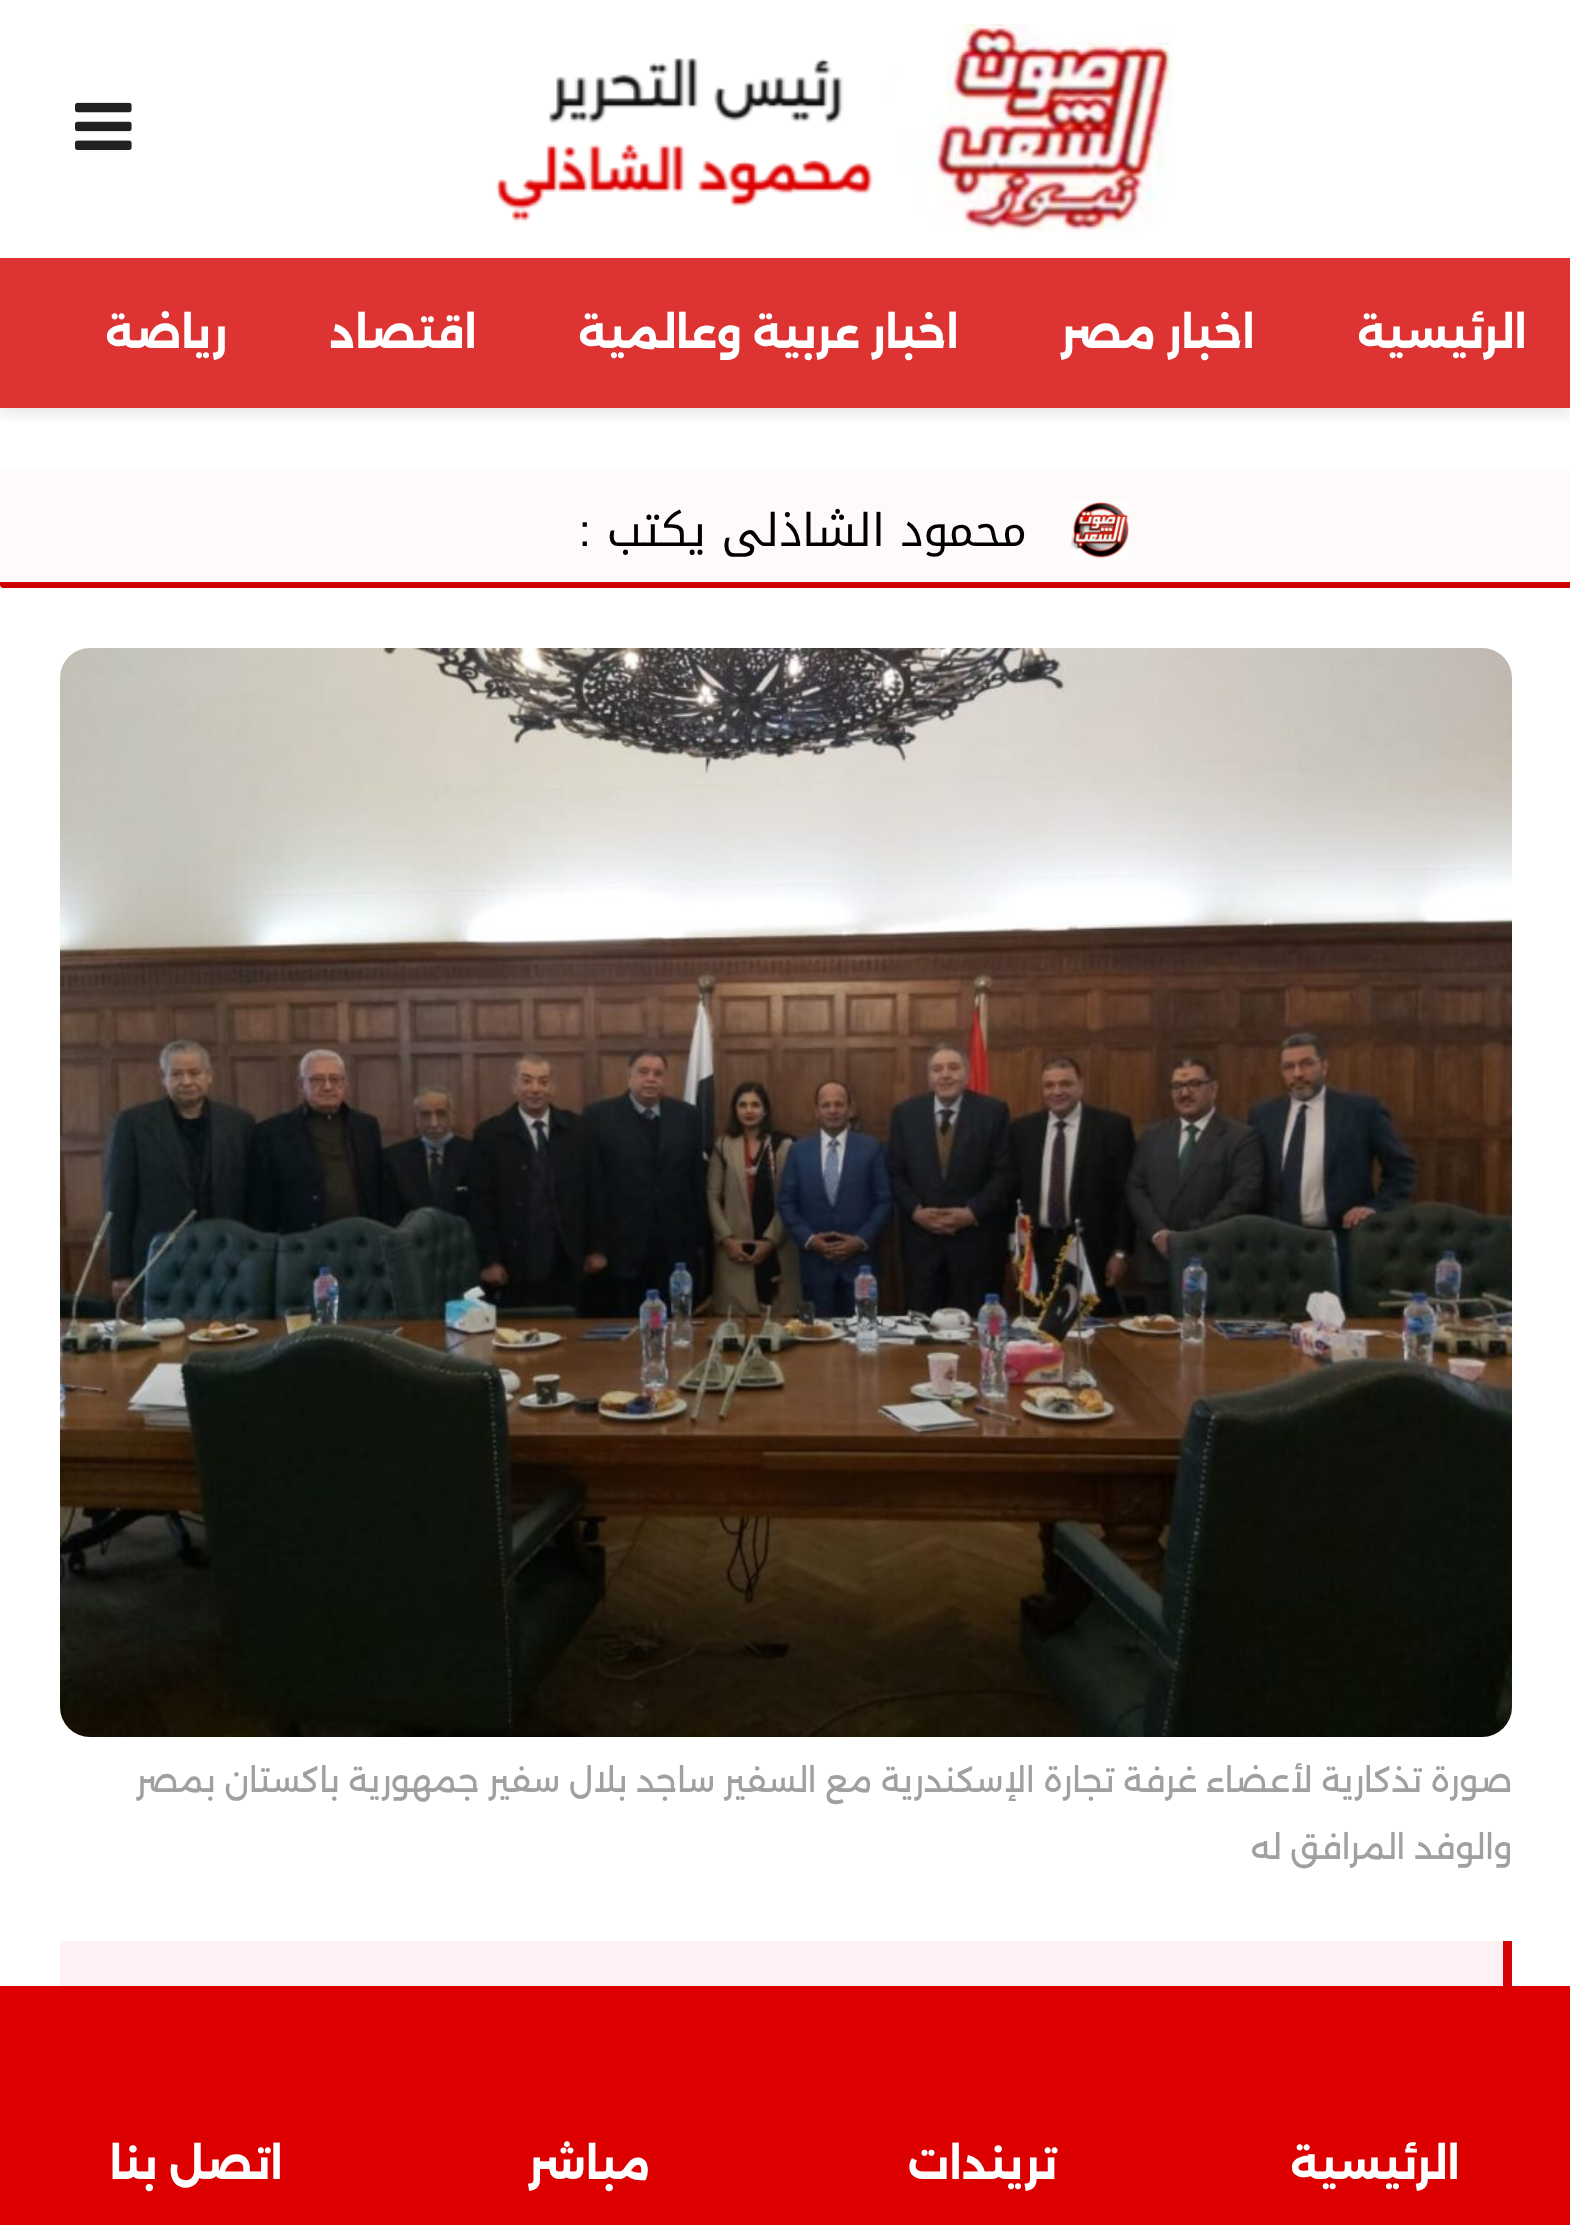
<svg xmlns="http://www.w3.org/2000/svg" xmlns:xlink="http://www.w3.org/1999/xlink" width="1570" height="2225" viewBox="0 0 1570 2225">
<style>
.cls-1{font:bold 42px Alexandria;direction:rtl;fill:#ffffff}
.cls-2{font:45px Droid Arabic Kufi;direction:rtl;fill:#000000}
.cls-3{font:45px Liberation Sans;direction:rtl;fill:#000000}
.cls-4{font:33px Alexandria;direction:rtl;fill:#a0a0a0}
</style>
<defs>
<clipPath id="clip1"><rect x="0" y="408" width="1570" height="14"/></clipPath>
</defs>
<rect width="100%" height="100%" fill="#ffffff"/>
<g clip-path="url(#clip1)">
<rect fill="#000000" fill-opacity="0.1" filter="blur(9px)" x="0" y="6" width="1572" height="408"/>
</g>
<image xlink:href="image0.png" x="495" y="24" width="679" height="210"/>
<image xlink:href="image1.png" x="75" y="102" width="57" height="48"/>
<rect fill="#dd3333" x="0" y="258" width="1570" height="150"/>
<rect fill="#fffafa" x="0" y="468" width="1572" height="120" rx="3"/>
<path fill="#ce0000" d="M0 582H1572V585C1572 586.5 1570.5 588 1569 588H3C1.5 588 0 586.5 0 585Z"/>
<image xlink:href="image2.png" x="1071" y="501" width="58" height="58"/>
<rect fill="#f7f7f7" x="60" y="648" width="1452" height="1089" rx="30"/>
<image xlink:href="image3.png" x="60" y="648" width="1452" height="1089"/>
<rect fill="#fff1f3" x="60" y="1941" width="1443" height="45"/>
<rect fill="#d60404" x="1503" y="1941" width="9" height="45"/>
<rect fill="#dc0000" x="0" y="1986" width="1570" height="239"/>
<text class="cls-1" x="1527" y="348">الرئيسية</text>
<text class="cls-1" x="1255" y="348">اخبار مصر</text>
<text class="cls-1" x="959" y="348">اخبار عربية وعالمية</text>
<text class="cls-1" x="477" y="348">اقتصاد</text>
<text class="cls-1" x="227" y="348">رياضة</text>
<text class="cls-2" x="1027" y="546">محمود الشاذلى يكتب</text>
<text class="cls-3" x="591" y="546">:</text>
<text class="cls-4" x="1512" y="1792">صورة تذكارية لأعضاء غرفة تجارة الإسكندرية مع السفير ساجد بلال سفير جمهورية باكستان بمصر</text>
<text class="cls-4" x="1512" y="1859">والوفد المرافق له</text>
<text class="cls-1" x="1460" y="2179">الرئيسية</text>
<text class="cls-1" x="1057" y="2179">تريندات</text>
<text class="cls-1" x="650" y="2179">مباشر</text>
<text class="cls-1" x="283" y="2179">اتصل بنا</text>
</svg>
